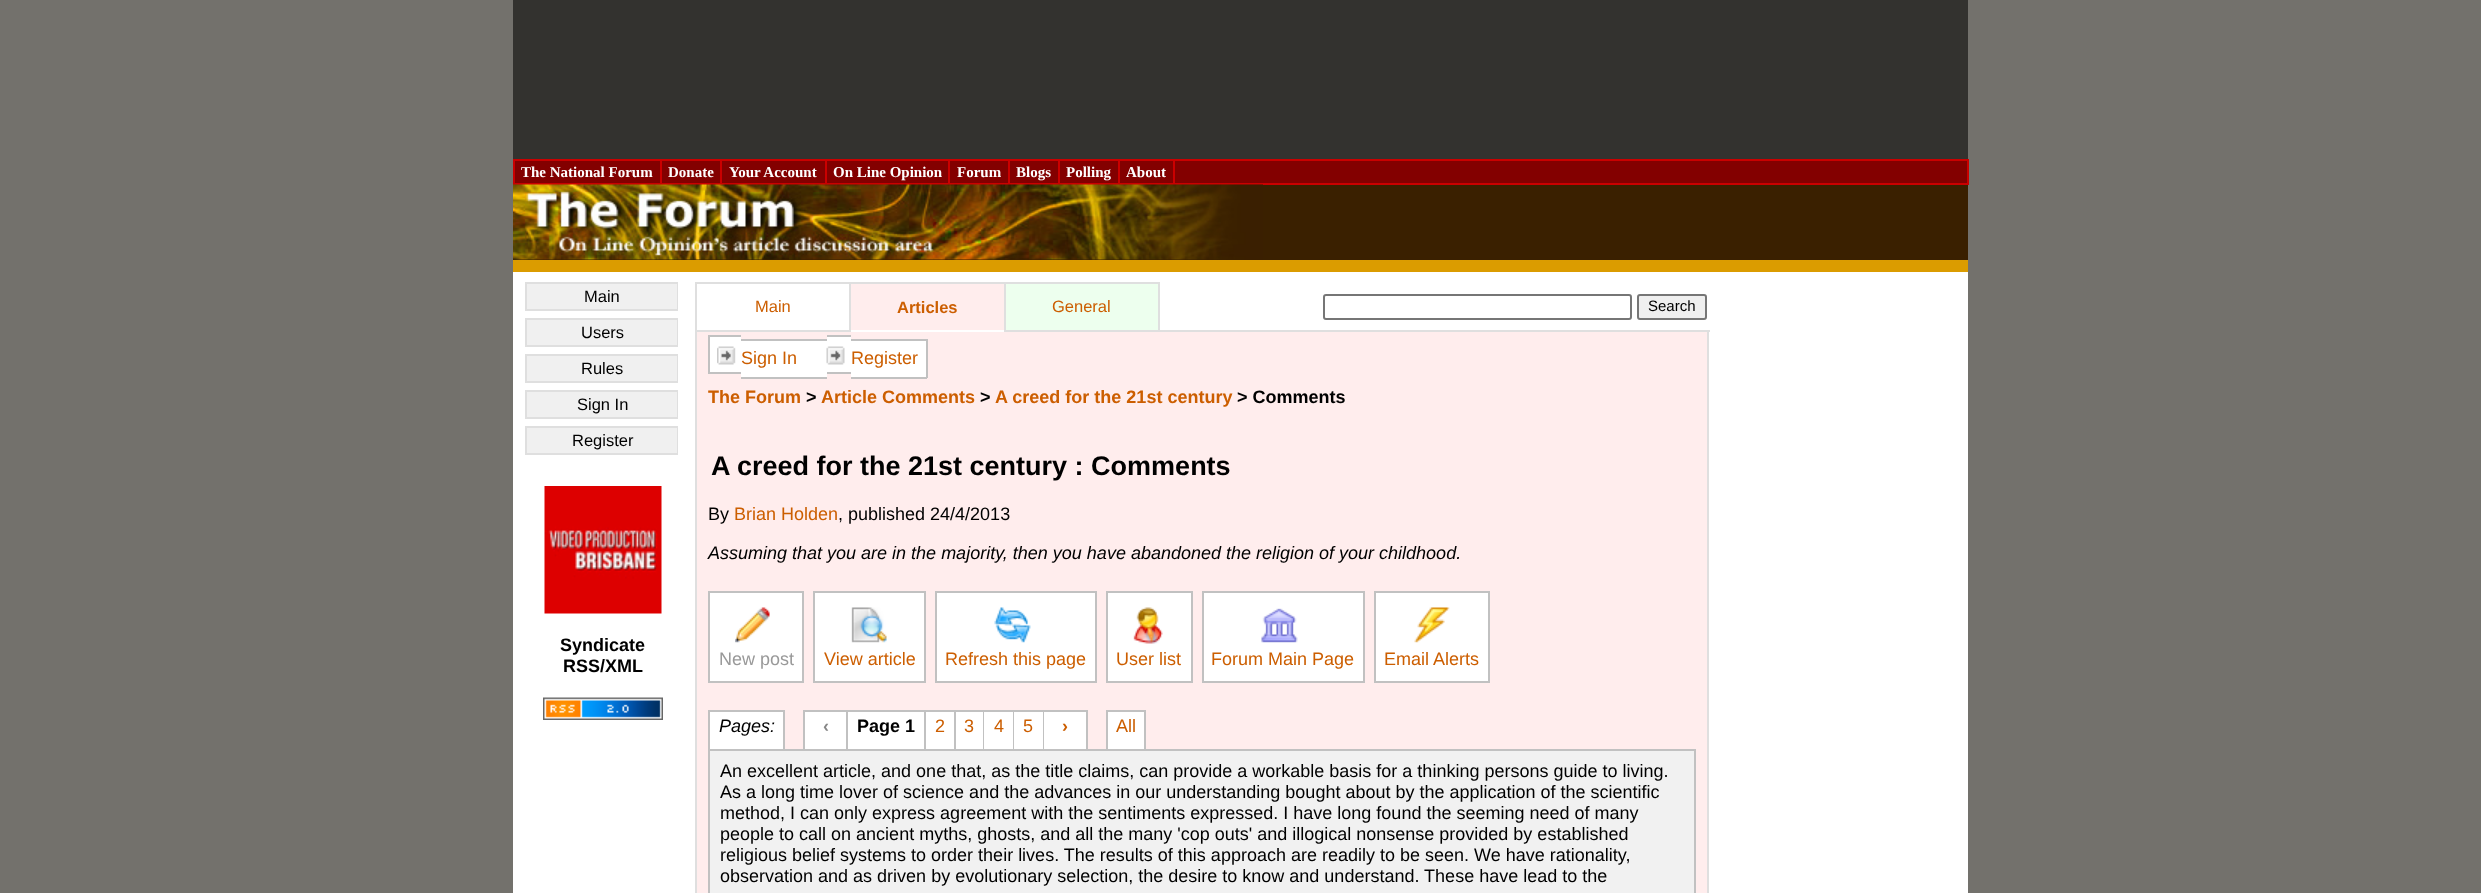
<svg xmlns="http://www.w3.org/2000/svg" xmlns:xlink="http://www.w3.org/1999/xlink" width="2481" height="893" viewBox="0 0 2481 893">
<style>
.cls-1{font:bold 15px Liberation Serif;fill:#ffffff}
.cls-2{font:16.5px Liberation Sans;fill:#000000}
.cls-3{font:bold 18px Liberation Sans;fill:#000000}
.cls-4{font:16.5px Liberation Sans;fill:#cc5e00}
.cls-5{font:bold 16.5px Liberation Sans;fill:#cc5e00}
.cls-6{font:15px Liberation Sans;fill:#000000}
.cls-7{font:18px Liberation Sans;fill:#cc5e00}
.cls-8{font:bold 18px Liberation Sans;fill:#cc5e00}
.cls-9{font:bold 27px Liberation Sans;fill:#000000}
.cls-10{font:18px Liberation Sans;fill:#000000}
.cls-11{font:italic 18px Liberation Sans;fill:#000000}
.cls-12{font:18px Liberation Sans;fill:#999999}
.cls-13{font:bold 18px Liberation Sans;fill:#888888}
</style>
<rect width="100%" height="100%" fill="#73716c"/>
<rect fill="#ffffff" x="513" y="272" width="1455" height="621"/>
<rect fill="#33322f" x="513" y="0" width="1455" height="159"/>
<rect fill="#830000" x="515" y="161" width="1452" height="22"/>
<rect fill="#ca0000" x="513" y="159" width="1455" height="2"/>
<rect fill="#ca0000" x="1967" y="159" width="2" height="26"/>
<rect fill="#ca0000" x="513" y="183" width="1455" height="2"/>
<rect fill="#ca0000" x="513" y="159" width="2" height="26"/>
<rect fill="#ca0000" x="660" y="159" width="2" height="26"/>
<rect fill="#ca0000" x="720" y="159" width="2" height="26"/>
<rect fill="#ca0000" x="825" y="159" width="2" height="26"/>
<rect fill="#ca0000" x="948" y="159" width="2" height="26"/>
<rect fill="#ca0000" x="1008" y="159" width="2" height="26"/>
<rect fill="#ca0000" x="1058" y="159" width="2" height="26"/>
<rect fill="#ca0000" x="1118" y="159" width="2" height="26"/>
<rect fill="#ca0000" x="1173" y="159" width="2" height="26"/>
<rect fill="#3a2000" x="513" y="185" width="1455" height="75"/>
<image xlink:href="image0.png" x="513" y="184" width="750" height="76"/>
<rect fill="#db9c00" x="513" y="260" width="1455" height="12"/>
<rect fill="none" stroke="#dfdfdf" stroke-width="2" x="526" y="283" width="151" height="27"/>
<rect fill="#f0f0f0" x="527" y="284" width="150" height="25"/>
<rect fill="none" stroke="#dfdfdf" stroke-width="2" x="526" y="319" width="151" height="27"/>
<rect fill="#f0f0f0" x="527" y="320" width="150" height="25"/>
<rect fill="none" stroke="#dfdfdf" stroke-width="2" x="526" y="355" width="151" height="27"/>
<rect fill="#f0f0f0" x="527" y="356" width="150" height="25"/>
<rect fill="none" stroke="#dfdfdf" stroke-width="2" x="526" y="391" width="151" height="27"/>
<rect fill="#f0f0f0" x="527" y="392" width="150" height="25"/>
<rect fill="none" stroke="#dfdfdf" stroke-width="2" x="526" y="427" width="151" height="27"/>
<rect fill="#f0f0f0" x="527" y="428" width="150" height="25"/>
<image xlink:href="image1.png" x="544" y="486" width="118" height="128"/>
<image xlink:href="image2.png" x="543" y="697" width="120" height="23"/>
<rect fill="#dfdfdf" x="1004" y="282" width="156" height="2"/>
<rect fill="#dfdfdf" x="1158" y="330" width="552" height="2"/>
<rect fill="#dfdfdf" x="1158" y="282" width="2" height="50"/>
<rect fill="#dfdfdf" x="1004" y="330" width="156" height="2"/>
<rect fill="#dfdfdf" x="1004" y="282" width="2" height="50"/>
<rect fill="#dfdfdf" x="849" y="282" width="156" height="2"/>
<rect fill="#dfdfdf" x="849" y="282" width="2" height="50"/>
<rect fill="#dfdfdf" x="695" y="282" width="156" height="2"/>
<rect fill="#dfdfdf" x="695" y="330" width="156" height="2"/>
<rect fill="#dfdfdf" x="695" y="282" width="2" height="611"/>
<rect fill="#ffeded" x="851" y="284" width="153" height="46"/>
<rect fill="#edffee" x="1006" y="284" width="152" height="46"/>
<rect fill="none" stroke="#767676" stroke-width="2" x="1324" y="295" width="307" height="24" rx="2"/>
<rect fill="#efefef" stroke="#767676" stroke-width="2" x="1638" y="295" width="68" height="24" rx="2"/>
<rect fill="#ffeded" x="697" y="332" width="1010" height="561"/>
<rect fill="#dfdfdf" x="1707" y="332" width="2" height="561"/>
<rect fill="#ffffff" x="710" y="337" width="31" height="35"/>
<image xlink:href="image3.png" x="717" y="346" width="19" height="19"/>
<rect fill="#c1c1c1" x="708" y="335" width="33" height="2"/>
<rect fill="#c1c1c1" x="708" y="372" width="33" height="2"/>
<rect fill="#c1c1c1" x="708" y="335" width="2" height="39"/>
<rect fill="#ffffff" x="741" y="341" width="86" height="36"/>
<rect fill="#c1c1c1" x="741" y="339" width="86" height="2"/>
<rect fill="#c1c1c1" x="741" y="377" width="86" height="2"/>
<rect fill="#ffffff" x="827" y="337" width="24" height="35"/>
<image xlink:href="image4.png" x="826" y="346" width="19" height="19"/>
<rect fill="#c1c1c1" x="827" y="335" width="24" height="2"/>
<rect fill="#c1c1c1" x="827" y="372" width="24" height="2"/>
<rect fill="#ffffff" x="851" y="341" width="75" height="36"/>
<rect fill="#c1c1c1" x="851" y="339" width="76" height="2"/>
<rect fill="#c1c1c1" x="926" y="339" width="2" height="39"/>
<rect fill="#c1c1c1" x="851" y="377" width="76" height="2"/>
<rect fill="#ffffff" stroke="#c1c1c1" stroke-width="2" x="709" y="592" width="94" height="90"/>
<image xlink:href="image5.png" x="735" y="607" width="35" height="36"/>
<rect fill="#ffffff" stroke="#c1c1c1" stroke-width="2" x="814" y="592" width="111" height="90"/>
<image xlink:href="image6.png" x="851" y="607" width="36" height="36"/>
<rect fill="#ffffff" stroke="#c1c1c1" stroke-width="2" x="936" y="592" width="160" height="90"/>
<image xlink:href="image7.png" x="994" y="607" width="37" height="36"/>
<rect fill="#ffffff" stroke="#c1c1c1" stroke-width="2" x="1107" y="592" width="85" height="90"/>
<image xlink:href="image8.png" x="1133" y="607" width="30" height="37"/>
<rect fill="#ffffff" stroke="#c1c1c1" stroke-width="2" x="1203" y="592" width="161" height="90"/>
<image xlink:href="image9.png" x="1261" y="608" width="37" height="35"/>
<rect fill="#ffffff" stroke="#c1c1c1" stroke-width="2" x="1375" y="592" width="114" height="90"/>
<image xlink:href="image10.png" x="1414" y="607" width="36" height="36"/>
<rect fill="#ffffff" x="710" y="712" width="73" height="37"/>
<rect fill="none" stroke="#c1c1c1" stroke-width="2" x="709" y="711" width="75" height="44"/>
<rect fill="#ffffff" x="805" y="712" width="41" height="37"/>
<rect fill="none" stroke="#c1c1c1" stroke-width="2" x="804" y="711" width="43" height="44"/>
<rect fill="#ffffff" x="848" y="712" width="76" height="37"/>
<rect fill="#c1c1c1" x="848" y="710" width="240" height="2"/>
<rect fill="#c1c1c1" x="924" y="710" width="2" height="46"/>
<rect fill="#ffffff" x="926" y="712" width="28" height="37"/>
<rect fill="#c1c1c1" x="954" y="710" width="2" height="46"/>
<rect fill="#ffffff" x="956" y="712" width="27" height="37"/>
<rect fill="#c1c1c1" x="983" y="710" width="1" height="46"/>
<rect fill="#ffffff" x="984" y="712" width="29" height="37"/>
<rect fill="#c1c1c1" x="1013" y="710" width="1" height="46"/>
<rect fill="#ffffff" x="1014" y="712" width="29" height="37"/>
<rect fill="#c1c1c1" x="1043" y="710" width="1" height="46"/>
<rect fill="#ffffff" x="1044" y="712" width="42" height="37"/>
<rect fill="#c1c1c1" x="1086" y="710" width="2" height="46"/>
<rect fill="#ffffff" x="1108" y="712" width="36" height="37"/>
<rect fill="none" stroke="#c1c1c1" stroke-width="2" x="1107" y="711" width="38" height="44"/>
<rect fill="#c1c1c1" x="708" y="749" width="987" height="2"/>
<rect fill="#c1c1c1" x="1694" y="749" width="2" height="144"/>
<rect fill="#c1c1c1" x="708" y="749" width="2" height="144"/>
<rect fill="#f1f1f1" x="710" y="751" width="984" height="142"/>
<text class="cls-1" x="521" y="177">The National Forum</text>
<text class="cls-1" x="668" y="177">Donate</text>
<text class="cls-1" x="729" y="177">Your Account</text>
<text class="cls-1" x="833" y="177">On Line Opinion</text>
<text class="cls-1" x="957" y="177">Forum</text>
<text class="cls-1" x="1016" y="177">Blogs</text>
<text class="cls-1" x="1066" y="177">Polling</text>
<text class="cls-1" x="1126" y="177">About</text>
<text class="cls-2" x="584" y="302">Main</text>
<text class="cls-2" x="581" y="338">Users</text>
<text class="cls-2" x="581" y="374">Rules</text>
<text class="cls-2" x="577" y="410">Sign In</text>
<text class="cls-2" x="572" y="446">Register</text>
<text class="cls-3" x="560" y="651">Syndicate</text>
<text class="cls-3" x="563" y="672">RSS/XML</text>
<text class="cls-4" x="755" y="312">Main</text>
<text class="cls-5" x="897" y="313">Articles</text>
<text class="cls-4" x="1052" y="312">General</text>
<text class="cls-6" x="1648" y="311">Search</text>
<text class="cls-7" x="741" y="364">Sign In</text>
<text class="cls-7" x="851" y="364">Register</text>
<text class="cls-8" x="708" y="403">The Forum</text>
<text class="cls-3" x="806" y="403">&gt;</text>
<text class="cls-8" x="821" y="403">Article Comments</text>
<text class="cls-3" x="980" y="403">&gt;</text>
<text class="cls-8" x="995" y="403">A creed for the 21st century</text>
<text class="cls-3" x="1237" y="403">&gt; Comments</text>
<text class="cls-9" x="711" y="475">A creed for the 21st century : Comments</text>
<text class="cls-10" x="708" y="520">By</text>
<text class="cls-7" x="734" y="520">Brian Holden</text>
<text class="cls-10" x="838" y="520">, published 24/4/2013</text>
<text class="cls-11" x="708" y="559">Assuming that you are in the majority, then you have abandoned the religion of your childhood.</text>
<text class="cls-12" x="719" y="665">New post</text>
<text class="cls-7" x="824" y="665">View article</text>
<text class="cls-7" x="945" y="665">Refresh this page</text>
<text class="cls-7" x="1116" y="665">User list</text>
<text class="cls-7" x="1211" y="665">Forum Main Page</text>
<text class="cls-7" x="1384" y="665">Email Alerts</text>
<text class="cls-11" x="719" y="732">Pages:</text>
<text class="cls-13" x="823" y="732">‹</text>
<text class="cls-3" x="857" y="732">Page 1</text>
<text class="cls-7" x="935" y="732">2</text>
<text class="cls-7" x="964" y="732">3</text>
<text class="cls-7" x="994" y="732">4</text>
<text class="cls-7" x="1023" y="732">5</text>
<text class="cls-8" x="1062" y="732">›</text>
<text class="cls-7" x="1116" y="732">All</text>
<text class="cls-10"><tspan x="720" y="777">An excellent article, and one that, as the title claims, can provide a workable basis for a thinking persons guide to living.</tspan><tspan x="720" y="798">As a long time lover of science and the advances in our understanding bought about by the application of the scientific</tspan><tspan x="720" y="819">method, I can only express agreement with the sentiments expressed. I have long found the seeming need of many</tspan><tspan x="720" y="840">people to call on ancient myths, ghosts, and all the many 'cop outs' and illogical nonsense provided by established</tspan><tspan x="720" y="861">religious belief systems to order their lives. The results of this approach are readily to be seen. We have rationality,</tspan><tspan x="720" y="882">observation and as driven by evolutionary selection, the desire to know and understand. These have lead to the</tspan></text>
</svg>
